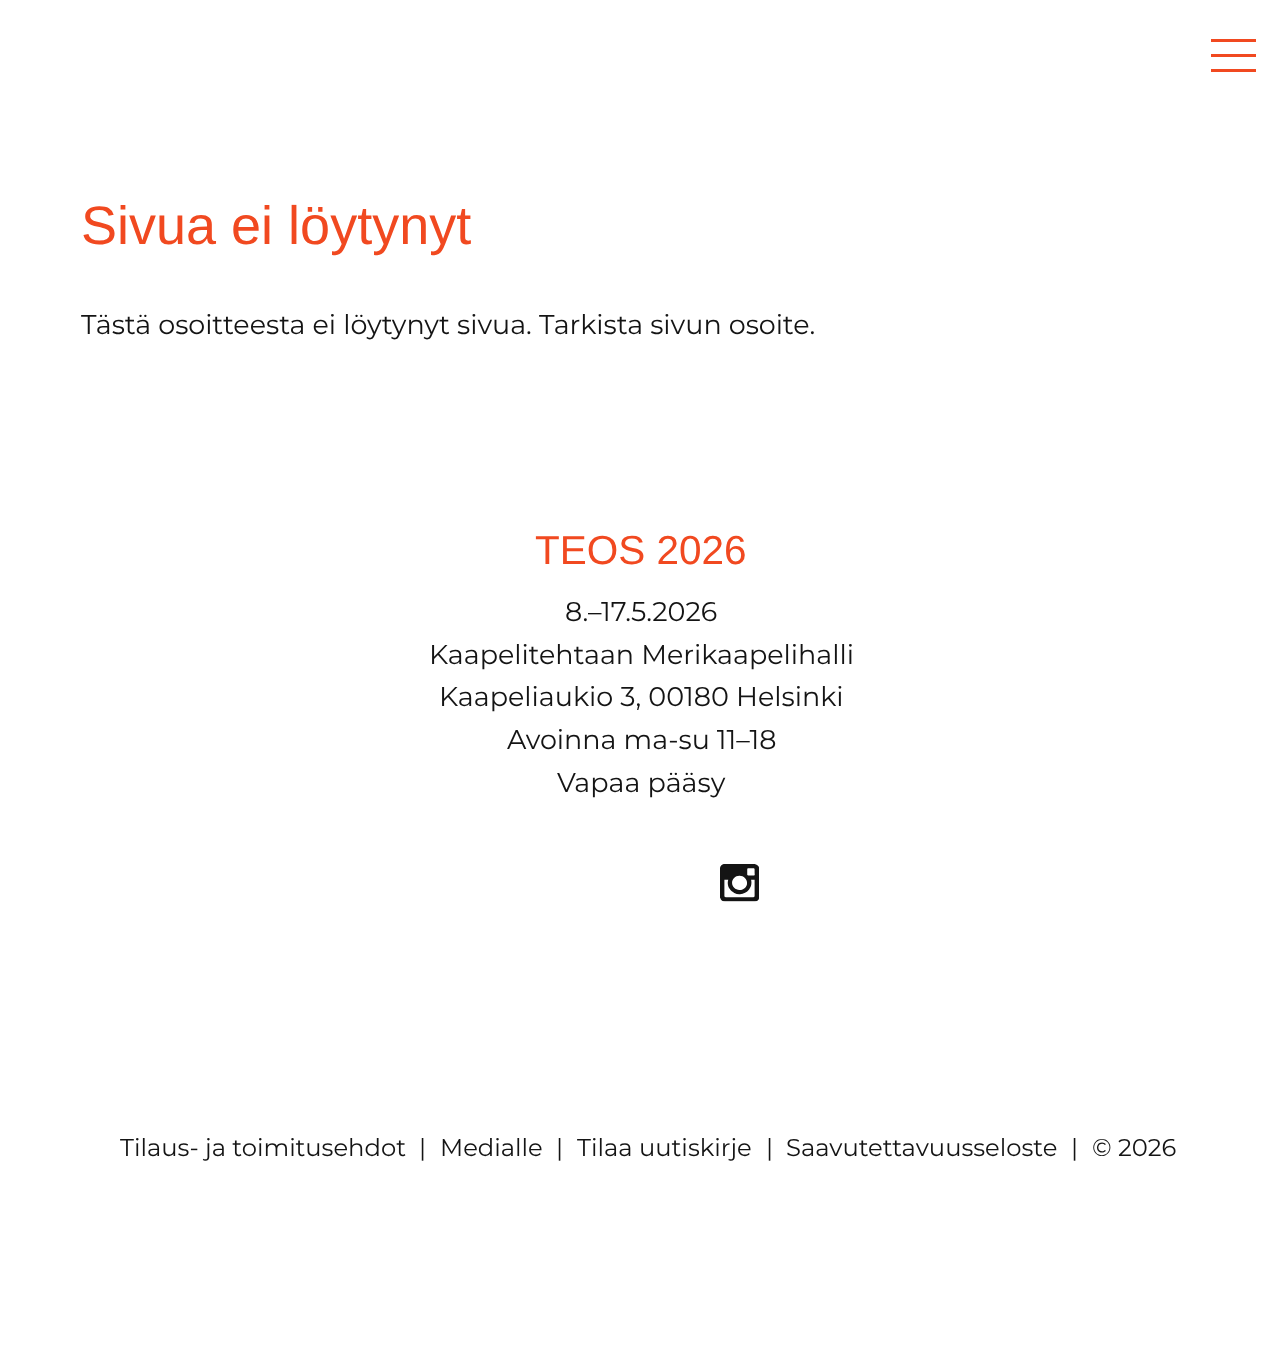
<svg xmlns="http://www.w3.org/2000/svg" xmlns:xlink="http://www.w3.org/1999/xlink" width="1282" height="1357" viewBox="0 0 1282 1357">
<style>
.cls-1{font:54px Liberation Sans;fill:#f14920}
.cls-2{font:27px Montserrat;fill:#141414}
.cls-3{font:40.5px Liberation Sans;fill:#f14920}
.cls-4{font:24.25px Montserrat;fill:#141414}
</style>
<rect width="100%" height="100%" fill="#ffffff"/>
<rect fill="#f14920" x="1211" y="54" width="45" height="3"/>
<rect fill="#f14920" x="1211" y="39" width="45" height="3"/>
<rect fill="#f14920" x="1211" y="69" width="45" height="3"/>
<image xlink:href="image0.png" x="720" y="864" width="39" height="38"/>
<text class="cls-1" x="81" y="244">Sivua ei löytynyt</text>
<text class="cls-2" x="81" y="334">Tästä osoitteesta ei löytynyt sivua. Tarkista sivun osoite.</text>
<text class="cls-3" x="535" y="564">TEOS 2026</text>
<text class="cls-2" x="565" y="621">8.–17.5.2026</text>
<text class="cls-2" x="429" y="664">Kaapelitehtaan Merikaapelihalli</text>
<text class="cls-2" x="439" y="706">Kaapeliaukio 3, 00180 Helsinki</text>
<text class="cls-2" x="507" y="749">Avoinna ma-su 11–18</text>
<text class="cls-2" x="557" y="792">Vapaa pääsy</text>
<text class="cls-4" x="120" y="1156">Tilaus- ja toimitusehdot</text>
<text class="cls-4" x="419" y="1156">|</text>
<text class="cls-4" x="440" y="1156">Medialle</text>
<text class="cls-4" x="556" y="1156">|</text>
<text class="cls-4" x="577" y="1156">Tilaa uutiskirje</text>
<text class="cls-4" x="766" y="1156">|</text>
<text class="cls-4" x="786" y="1156">Saavutettavuusseloste</text>
<text class="cls-4" x="1071" y="1156">|</text>
<text class="cls-4" x="1092" y="1156">© 2026</text>
</svg>
